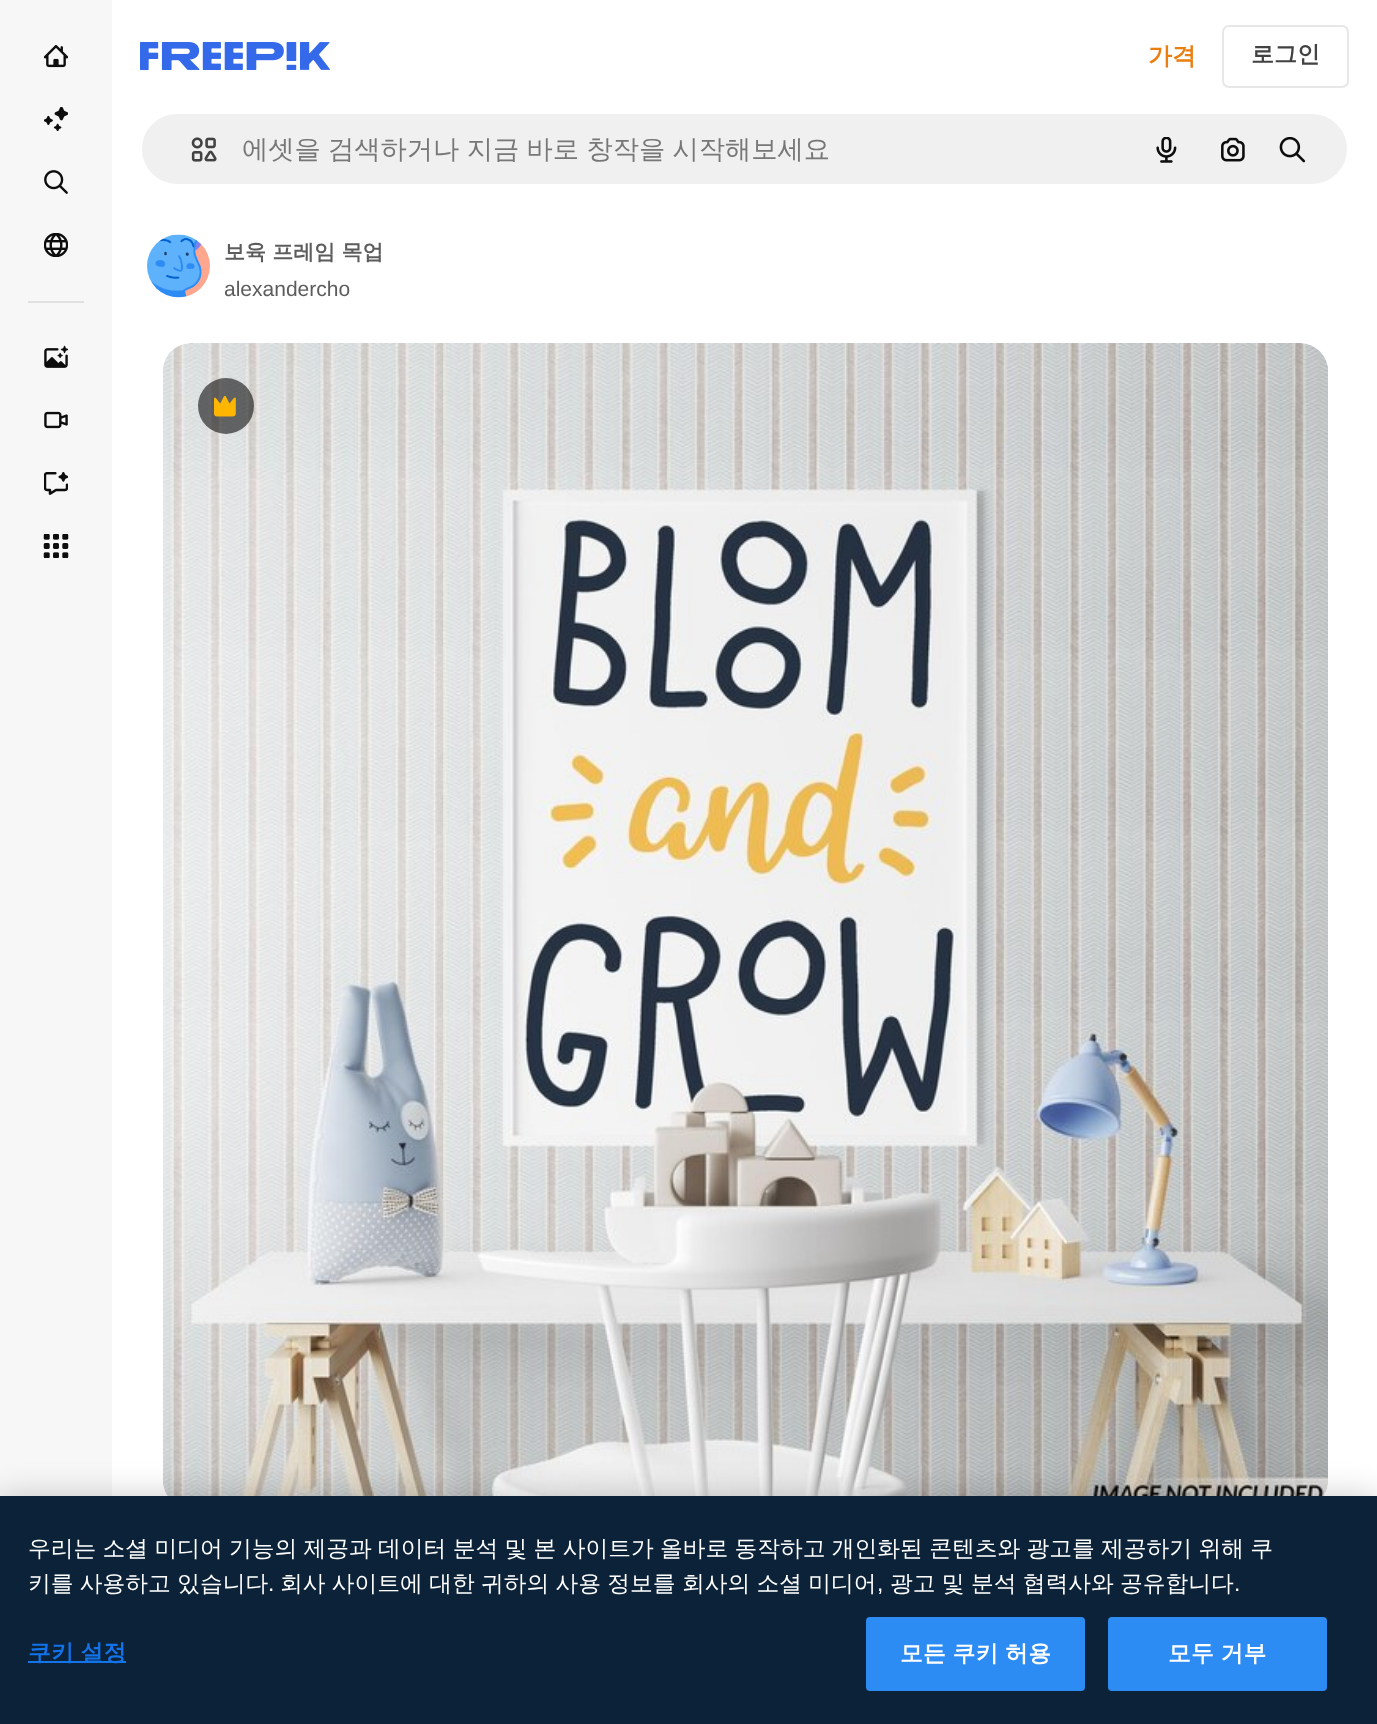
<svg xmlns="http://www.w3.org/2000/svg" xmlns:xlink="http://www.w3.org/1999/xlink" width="1377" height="1724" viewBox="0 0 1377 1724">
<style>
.cls-1{font:bold 24px WenQuanYi Zen Hei;fill:#ea7e11}
.cls-2{font:bold 23px WenQuanYi Zen Hei;fill:#424242}
.cls-3{font:500 26.25px WenQuanYi Zen Hei;fill:#777777}
.cls-4{font:bold 21px WenQuanYi Zen Hei;fill:#5c5c5c}
.cls-5{font:21px Liberation Sans;fill:#5c5c5c}
.cls-6{font:500 22.75px WenQuanYi Zen Hei;fill:#ffffff}
.cls-7{font:22.75px Liberation Sans;fill:#ffffff}
.cls-8{font:bold 22.75px WenQuanYi Zen Hei;letter-spacing:0.25px;fill:#1273eb}
.cls-9{font:bold 22.75px WenQuanYi Zen Hei;letter-spacing:0.25px;fill:#ffffff}
</style>
<rect width="100%" height="100%" fill="#ffffff"/>
<rect fill="#f7f7f7" x="0" y="0" width="112" height="1496"/>
<image xlink:href="image0.png" x="44" y="45" width="24" height="23"/>
<image xlink:href="image1.png" x="44" y="107" width="24" height="24"/>
<image xlink:href="image2.png" x="44" y="170" width="24" height="24"/>
<image xlink:href="image3.png" x="44" y="233" width="24" height="24"/>
<rect fill="#e0e0e0" x="28" y="301" width="56" height="2"/>
<image xlink:href="image4.png" x="44" y="345" width="24" height="23"/>
<image xlink:href="image5.png" x="44" y="411" width="24" height="18"/>
<image xlink:href="image6.png" x="44" y="472" width="24" height="23"/>
<image xlink:href="image7.png" x="43" y="534" width="26" height="24"/>
<image xlink:href="image8.png" x="140" y="42" width="190" height="28"/>
<rect fill="none" stroke="#e7e7e7" stroke-width="2" x="1223" y="26" width="125" height="61" rx="6"/>
<rect fill="#f0f0f0" stroke="#ffffff" stroke-width="2" x="141" y="113" width="1207" height="72" rx="36"/>
<image xlink:href="image9.png" x="191" y="137" width="26" height="25"/>
<image xlink:href="image10.png" x="1156" y="137" width="21" height="26"/>
<image xlink:href="image11.png" x="1221" y="137" width="24" height="25"/>
<image xlink:href="image12.png" x="1279" y="137" width="27" height="26"/>
<image xlink:href="image13.png" x="147" y="234" width="63" height="64"/>
<image xlink:href="image14.png" x="163" y="343" width="1165" height="1153"/>
<circle fill="#0d0d0d" fill-opacity="0.6" cx="226" cy="406" r="28"/>
<image xlink:href="image15.png" x="214" y="396" width="22" height="21"/>
<rect fill="#000000" fill-opacity="0.2" filter="blur(16px)" x="0" y="1496" width="1377" height="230"/>
<rect fill="#0b2239" x="0" y="1496" width="1377" height="228"/>
<rect fill="#1273eb" x="28" y="1661" width="98" height="2"/>
<rect fill="#2c8cf4" stroke="#2c8cf4" stroke-width="2" x="867" y="1618" width="217" height="72" rx="3"/>
<rect fill="#2c8cf4" stroke="#2c8cf4" stroke-width="2" x="1109" y="1618" width="217" height="72" rx="3"/>
<text class="cls-1" x="1148" y="64">가격</text>
<text class="cls-2" x="1251" y="62">로그인</text>
<text class="cls-3" x="242" y="158" word-spacing="-0.5">에셋을 검색하거나 지금 바로 창작을 시작해보세요</text>
<text class="cls-4" x="224" y="259">보육 프레임 목업</text>
<text class="cls-5" x="224" y="296">alexandercho</text>
<text class="cls-6"><tspan x="28" y="1556" word-spacing="-0.5">우리는 소셜 미디어 기능의 제공과 데이터 분석 및 본 사이트가 올바로 동작하고 개인화된 콘텐츠와 광고를 제공하기 위해 쿠</tspan><tspan x="28" y="1591" word-spacing="-0.5">키를 사용하고 있습니다</tspan></text>
<text class="cls-7" x="268" y="1591">.</text>
<text class="cls-6" x="280" y="1591" word-spacing="-0.5">회사 사이트에 대한 귀하의 사용 정보를 회사의 소셜 미디어</text>
<text class="cls-7" x="877" y="1591">,</text>
<text class="cls-6" x="890" y="1591" word-spacing="-0.5">광고 및 분석 협력사와 공유합니다</text>
<text class="cls-7" x="1234" y="1591">.</text>
<text class="cls-8" x="28" y="1660" word-spacing="-0.5">쿠키 설정</text>
<text class="cls-9" x="900" y="1661" word-spacing="-0.5">모든 쿠키 허용</text>
<text class="cls-9" x="1168" y="1661" word-spacing="-0.5">모두 거부</text>
</svg>
